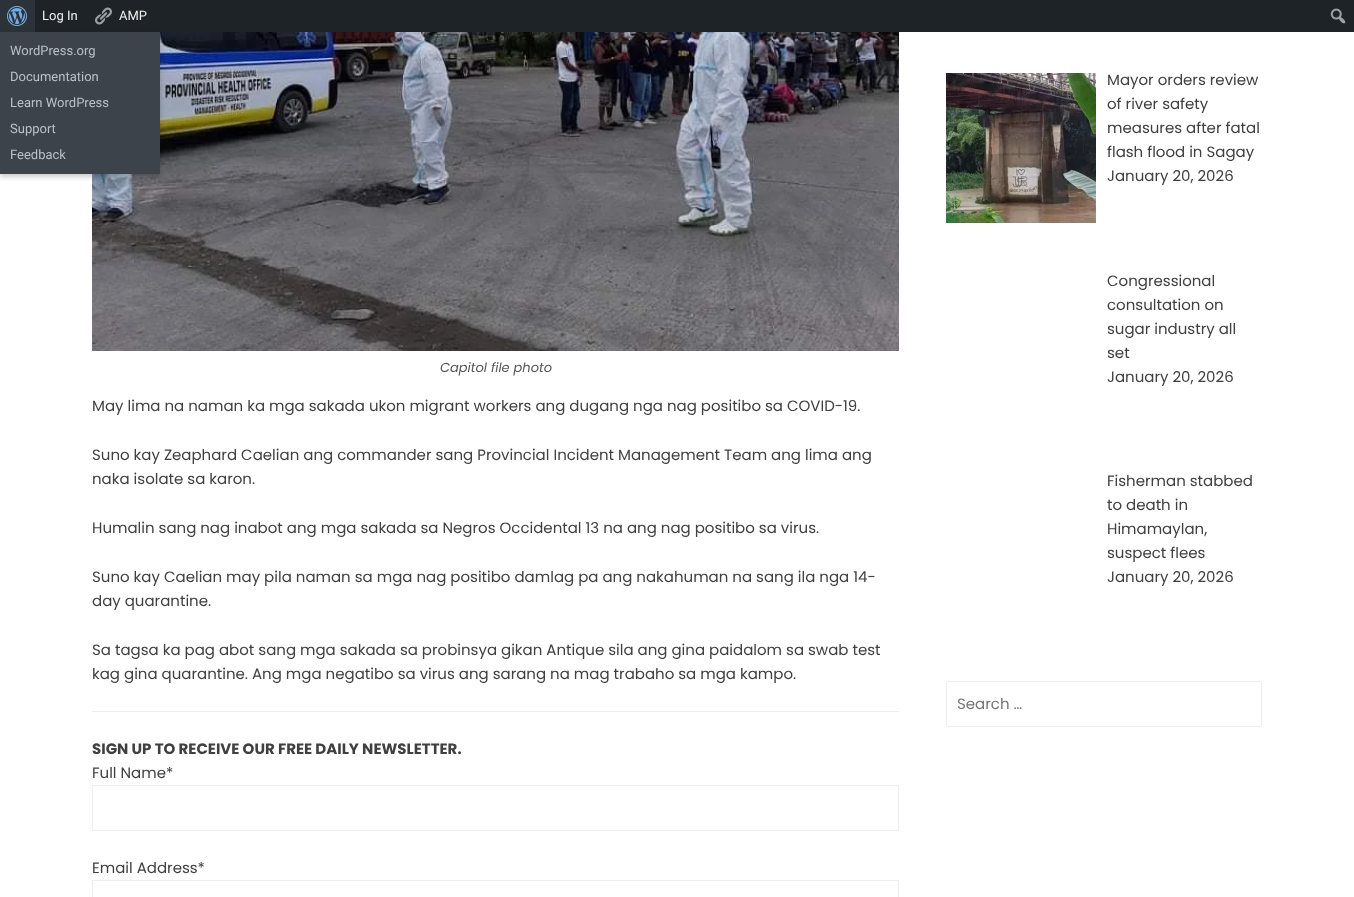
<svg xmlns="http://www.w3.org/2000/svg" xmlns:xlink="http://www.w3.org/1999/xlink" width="1354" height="897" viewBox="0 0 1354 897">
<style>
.cls-1{font:13px Roboto;fill:#f0f0f1}
.cls-2{font:13px Roboto;fill:#bac0c7}
.cls-3{font:italic 13px Poppins;fill:#555555}
.cls-4{font:15px Poppins;fill:#404040}
.cls-5{font:bold 15px Poppins;fill:#404040}
.cls-6{font:15px Poppins;fill:#757575}
</style>
<rect width="100%" height="100%" fill="#ffffff"/>
<rect fill="#1d2327" x="35" y="0" width="1319" height="32"/>
<image xlink:href="image0.png" x="95" y="7" width="17" height="18"/>
<rect fill="#2c3338" x="0" y="0" width="35" height="32"/>
<image xlink:href="image1.png" x="7" y="6" width="20" height="20"/>
<image xlink:href="image3.png" x="92" y="32" width="807" height="319"/>
<rect fill="#000000" fill-opacity="0.2" filter="blur(2.5px)" x="0" y="35" width="160" height="142"/>
<rect fill="#3c434a" x="0" y="32" width="160" height="142"/>
<image xlink:href="image2.png" x="1330" y="8" width="16" height="16"/>
<rect fill="#eeeeee" x="92" y="711" width="807" height="1"/>
<rect fill="none" stroke="#eeeeee" x="92.5" y="785.5" width="806" height="45"/>
<rect fill="none" stroke="#eeeeee" x="92.5" y="880.5" width="806" height="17"/>
<image xlink:href="image4.png" x="946" y="73" width="150" height="150"/>
<rect fill="none" stroke="#eeeeee" x="946.5" y="681.5" width="315" height="45"/>
<text class="cls-1" x="42" y="20">Log In</text>
<text class="cls-1" x="119" y="20">AMP</text>
<text class="cls-2" x="10" y="55">WordPress.org</text>
<text class="cls-2" x="10" y="81">Documentation</text>
<text class="cls-2" x="10" y="107">Learn WordPress</text>
<text class="cls-2" x="10" y="133">Support</text>
<text class="cls-2" x="10" y="159">Feedback</text>
<text class="cls-3" x="440" y="372">Capitol file photo</text>
<text class="cls-4" x="92" y="411">May lima na naman ka mga sakada ukon migrant workers ang dugang nga nag positibo sa COVID-19.</text>
<text class="cls-4"><tspan x="92" y="460">Suno kay Zeaphard Caelian ang commander sang Provincial Incident Management Team ang lima ang</tspan><tspan x="92" y="484">naka isolate sa karon.</tspan></text>
<text class="cls-4" x="92" y="533">Humalin sang nag inabot ang mga sakada sa Negros Occidental 13 na ang nag positibo sa virus.</text>
<text class="cls-4"><tspan x="92" y="582">Suno kay Caelian may pila naman sa mga nag positibo damlag pa ang nakahuman na sang ila nga 14-</tspan><tspan x="92" y="606">day quarantine.</tspan></text>
<text class="cls-4"><tspan x="92" y="655">Sa tagsa ka pag abot sang mga sakada sa probinsya gikan Antique sila ang gina paidalom sa swab test</tspan><tspan x="92" y="679">kag gina quarantine. Ang mga negatibo sa virus ang sarang na mag trabaho sa mga kampo.</tspan></text>
<text class="cls-5" x="92" y="754">SIGN UP TO RECEIVE OUR FREE DAILY NEWSLETTER.</text>
<text class="cls-4" x="92" y="778">Full Name*</text>
<text class="cls-4" x="92" y="873">Email Address*</text>
<text class="cls-4"><tspan x="1107" y="85">Mayor orders review</tspan><tspan x="1107" y="109">of river safety</tspan><tspan x="1107" y="133">measures after fatal</tspan><tspan x="1107" y="157">flash flood in Sagay</tspan><tspan x="1107" y="181">January 20, 2026</tspan></text>
<text class="cls-4"><tspan x="1107" y="286">Congressional</tspan><tspan x="1107" y="310">consultation on</tspan><tspan x="1107" y="334">sugar industry all</tspan><tspan x="1107" y="358">set</tspan><tspan x="1107" y="382">January 20, 2026</tspan></text>
<text class="cls-4"><tspan x="1107" y="486">Fisherman stabbed</tspan><tspan x="1107" y="510">to death in</tspan><tspan x="1107" y="534">Himamaylan,</tspan><tspan x="1107" y="558">suspect flees</tspan><tspan x="1107" y="582">January 20, 2026</tspan></text>
<text class="cls-6" x="957" y="709">Search …</text>
</svg>
